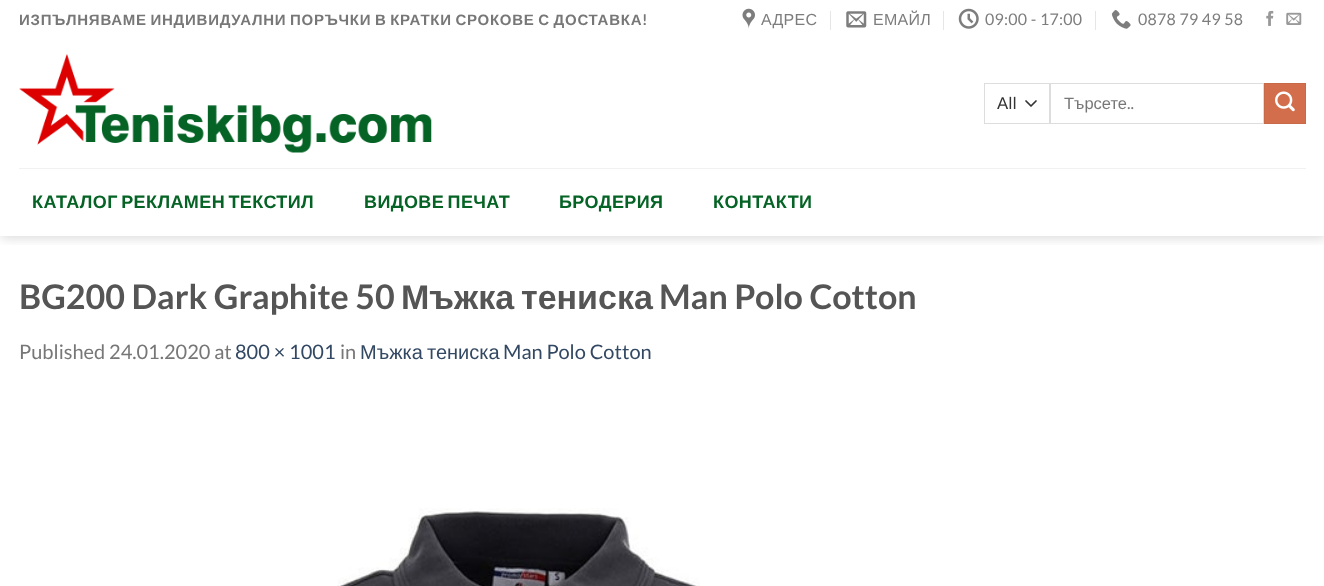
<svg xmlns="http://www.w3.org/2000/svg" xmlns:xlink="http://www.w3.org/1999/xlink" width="1324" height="586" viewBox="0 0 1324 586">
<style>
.cls-1{font:bold 15px Liberation Sans;letter-spacing:0.75px;fill:#777777}
.cls-2{font:bold 15px Lato;letter-spacing:0.75px;fill:#777777}
.cls-3{font:16px Liberation Sans;letter-spacing:0.25px;fill:#7d7d7d}
.cls-4{font:16px Lato;letter-spacing:0.25px;fill:#7d7d7d}
.cls-5{font:16.5px Lato;fill:#333333}
.cls-6{font:16.5px Liberation Sans;fill:#777777}
.cls-7{font:16.5px Lato;fill:#777777}
.cls-8{font:bold 18px Liberation Sans;letter-spacing:0.4px;fill:#066326}
.cls-9{font:bold 34px Lato;fill:#555555}
.cls-10{font:bold 34px Liberation Sans;fill:#555555}
.cls-11{font:20px Lato;fill:#777777}
.cls-12{font:20px Lato;fill:#334862}
.cls-13{font:20px Liberation Sans;fill:#334862}
</style>
<defs>
<clipPath id="clip1"><rect x="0" y="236" width="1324" height="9"/></clipPath>
</defs>
<rect width="100%" height="100%" fill="#ffffff"/>
<g clip-path="url(#clip1)">
<rect fill="#000000" fill-opacity="0.15" filter="blur(6px)" x="1" y="1" width="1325" height="237"/>
</g>
<image xlink:href="image0.png" x="742" y="8" width="13" height="21"/>
<rect fill="#e6e6e6" x="830" y="11" width="1" height="19"/>
<image xlink:href="image1.png" x="846" y="11" width="21" height="17"/>
<rect fill="#e6e6e6" x="943" y="11" width="1" height="19"/>
<image xlink:href="image2.png" x="958" y="8" width="21" height="21"/>
<rect fill="#e6e6e6" x="1095" y="11" width="1" height="19"/>
<image xlink:href="image3.png" x="1111" y="10" width="20" height="19"/>
<image xlink:href="image4.png" x="1266" y="10" width="8" height="16"/>
<image xlink:href="image5.png" x="1286" y="12" width="16" height="13"/>
<image xlink:href="image6.png" x="19" y="54" width="413" height="99"/>
<path fill="none" stroke="#333333" stroke-width="1.7" stroke-linecap="round" stroke-linejoin="round" d="M1026 101L1031 106L1036 101"/>
<rect fill="none" stroke="#dddddd" x="984.5" y="83.5" width="65" height="40"/>
<rect fill="none" stroke="#dddddd" x="1050.5" y="83.5" width="213" height="40"/>
<rect fill="#d26e4b" stroke="#c86947" x="1264.5" y="83.5" width="41" height="40"/>
<image xlink:href="image7.png" x="1275" y="91" width="20" height="21"/>
<rect fill="#f1f1f1" x="19" y="168" width="1287" height="1"/>
<image xlink:href="image8.png" x="337" y="508" width="363" height="78"/>
<text class="cls-1" x="19" y="25" word-spacing="-1.25">ИЗПЪЛНЯВАМЕ ИНДИВИДУАЛНИ ПОРЪЧКИ В КРАТКИ СРОКОВЕ С ДОСТАВКА</text>
<text class="cls-2" x="642" y="25">!</text>
<text class="cls-3" x="761" y="25">АДРЕС</text>
<text class="cls-3" x="873" y="25">ЕМАЙЛ</text>
<text class="cls-4" x="985" y="25">09:00 - 17:00</text>
<text class="cls-4" x="1138" y="25">0878 79 49 58</text>
<text class="cls-5" x="997" y="109">All</text>
<text class="cls-6" x="1064" y="109">Търсете</text>
<text class="cls-7" x="1127" y="109">..</text>
<text class="cls-8" x="32" y="208" word-spacing="-2">КАТАЛОГ РЕКЛАМЕН ТЕКСТИЛ</text>
<text class="cls-8" x="364" y="208" word-spacing="-2">ВИДОВЕ ПЕЧАТ</text>
<text class="cls-8" x="559" y="208">БРОДЕРИЯ</text>
<text class="cls-8" x="713" y="208">КОНТАКТИ</text>
<text class="cls-9" x="19" y="309">BG200 Dark Graphite 50</text>
<text class="cls-10" x="401" y="309">Мъжка</text>
<text class="cls-10" x="521" y="309">тениска</text>
<text class="cls-9" x="659" y="309">Man Polo Cotton</text>
<text class="cls-11" x="19" y="359">Published 24.01.2020 at</text>
<text class="cls-12" x="235" y="359">800 × 1001</text>
<text class="cls-11" x="340" y="359">in</text>
<text class="cls-13" x="360" y="359">Мъжка</text>
<text class="cls-13" x="427" y="359">тениска</text>
<text class="cls-12" x="503" y="359">Man Polo Cotton</text>
</svg>
